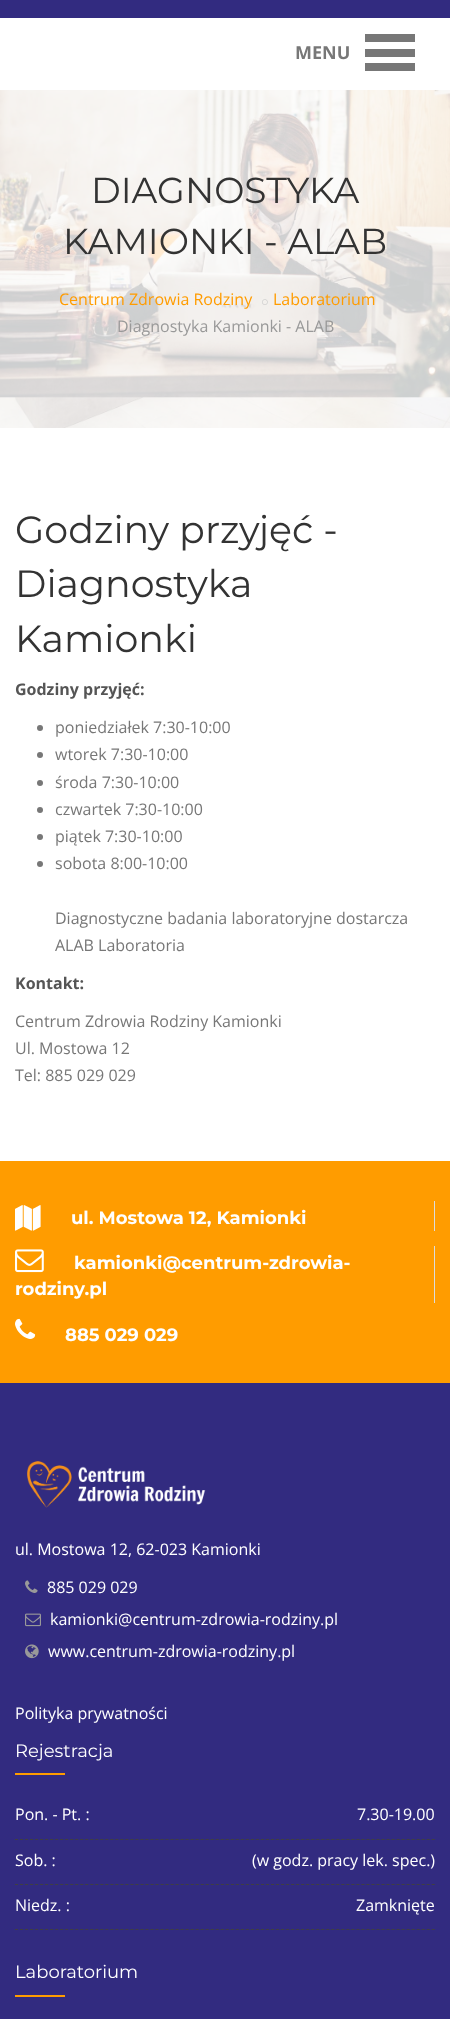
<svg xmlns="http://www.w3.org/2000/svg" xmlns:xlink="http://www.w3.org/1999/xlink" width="450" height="2019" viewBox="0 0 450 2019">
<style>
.cls-1{font:bold 18px Open Sans;fill:#777777}
.cls-2{font:36px Montserrat;fill:#333333}
.cls-3{font:16px Open Sans;fill:#ff9c00}
.cls-4{font:16px Open Sans;fill:#999999}
.cls-5{font:38px Montserrat;fill:#333333}
.cls-6{font:bold 16px Open Sans;fill:#555555}
.cls-7{font:16px Open Sans;fill:#777777}
.cls-8{font:bold 18px Montserrat;fill:#ffffff}
.cls-9{font:16px Open Sans;fill:#ffffff}
.cls-10{font:18px Montserrat;fill:#ffffff}
</style>
<rect width="100%" height="100%" fill="#ffffff"/>
<rect fill="#322b80" x="0" y="0" width="450" height="18"/>
<rect fill="#777777" x="365" y="34" width="50" height="8"/>
<rect fill="#777777" x="365" y="49" width="50" height="8"/>
<rect fill="#777777" x="365" y="63" width="50" height="8"/>
<image xlink:href="image0.png" x="0" y="90" width="450" height="338"/>
<image xlink:href="image1.png" x="262" y="299" width="6" height="6"/>
<image xlink:href="image2.png" x="106" y="326" width="3" height="6"/>
<circle fill="#777777" cx="40" cy="728" r="3"/>
<circle fill="#777777" cx="40" cy="755" r="3"/>
<circle fill="#777777" cx="40" cy="783" r="3"/>
<circle fill="#777777" cx="40" cy="810" r="3"/>
<circle fill="#777777" cx="40" cy="837" r="3"/>
<circle fill="#777777" cx="40" cy="864" r="3"/>
<rect fill="#ff9c00" x="0" y="1161" width="450" height="222"/>
<rect fill="#dcdcdc" x="434" y="1201" width="1" height="30"/>
<image xlink:href="image3.png" x="15" y="1205" width="26" height="26"/>
<rect fill="#dcdcdc" x="434" y="1246" width="1" height="57"/>
<image xlink:href="image4.png" x="15" y="1249" width="29" height="24"/>
<image xlink:href="image5.png" x="15" y="1318" width="21" height="21"/>
<rect fill="#322b80" x="0" y="1383" width="450" height="636"/>
<image xlink:href="image6.png" x="27" y="1461" width="179" height="47"/>
<image xlink:href="image7.png" x="25" y="1580" width="13" height="13"/>
<image xlink:href="image8.png" x="25" y="1613" width="16" height="14"/>
<image xlink:href="image9.png" x="25" y="1644" width="14" height="15"/>
<rect fill="#ff9c00" x="15" y="1773" width="50" height="2"/>
<path fill="none" stroke="#404040" stroke-dasharray="3 2.02" d="M15 1839.5H435"/>
<path fill="none" stroke="#404040" stroke-dasharray="3 2.02" d="M15 1884.5H435"/>
<path fill="none" stroke="#404040" stroke-dasharray="3 2.02" d="M15 1929.5H435"/>
<rect fill="#ff9c00" x="15" y="1995" width="50" height="2"/>
<text class="cls-1" x="295" y="59">MENU</text>
<text class="cls-2" x="91" y="203">DIAGNOSTYKA</text>
<text class="cls-2" x="63" y="254">KAMIONKI - ALAB</text>
<text class="cls-3" x="59" y="305">Centrum Zdrowia Rodziny</text>
<text class="cls-3" x="273" y="305">Laboratorium</text>
<text class="cls-4" x="117" y="332">Diagnostyka Kamionki - ALAB</text>
<text class="cls-5"><tspan x="15" y="543">Godziny przyjęć -</tspan><tspan x="15" y="597">Diagnostyka</tspan><tspan x="15" y="652">Kamionki</tspan></text>
<text class="cls-6" x="15" y="695">Godziny przyjęć:</text>
<text class="cls-7"><tspan x="55" y="733">poniedziałek 7:30-10:00</tspan><tspan x="55" y="760">wtorek 7:30-10:00</tspan><tspan x="55" y="788">środa 7:30-10:00</tspan><tspan x="55" y="815">czwartek 7:30-10:00</tspan><tspan x="55" y="842">piątek 7:30-10:00</tspan><tspan x="55" y="869">sobota 8:00-10:00</tspan></text>
<text class="cls-7"><tspan x="55" y="924">Diagnostyczne badania laboratoryjne dostarcza</tspan><tspan x="55" y="951">ALAB Laboratoria</tspan></text>
<text class="cls-6" x="15" y="989">Kontakt:</text>
<text class="cls-7"><tspan x="15" y="1027">Centrum Zdrowia Rodziny Kamionki</tspan><tspan x="15" y="1054">Ul. Mostowa 12</tspan><tspan x="15" y="1081">Tel: 885 029 029</tspan></text>
<text class="cls-8" x="71" y="1224">ul. Mostowa 12, Kamionki</text>
<text class="cls-8" x="74" y="1269">kamionki@centrum-zdrowia-</text>
<text class="cls-8" x="15" y="1295">rodziny.pl</text>
<text class="cls-8" x="65" y="1341">885 029 029</text>
<text class="cls-9" x="15" y="1555">ul. Mostowa 12, 62-023 Kamionki</text>
<text class="cls-9" x="47" y="1593">885 029 029</text>
<text class="cls-9" x="50" y="1625">kamionki@centrum-zdrowia-rodziny.pl</text>
<text class="cls-9" x="48" y="1657">www.centrum-zdrowia-rodziny.pl</text>
<text class="cls-9" x="15" y="1719">Polityka prywatności</text>
<text class="cls-10" x="15" y="1757">Rejestracja</text>
<text class="cls-9" x="15" y="1820">Pon. - Pt. :</text>
<text class="cls-9" x="357" y="1820">7.30-19.00</text>
<text class="cls-9" x="15" y="1866">Sob. :</text>
<text class="cls-9" x="252" y="1866">(w godz. pracy lek. spec.)</text>
<text class="cls-9" x="15" y="1911">Niedz. :</text>
<text class="cls-9" x="356" y="1911">Zamknięte</text>
<text class="cls-10" x="15" y="1978">Laboratorium</text>
</svg>
